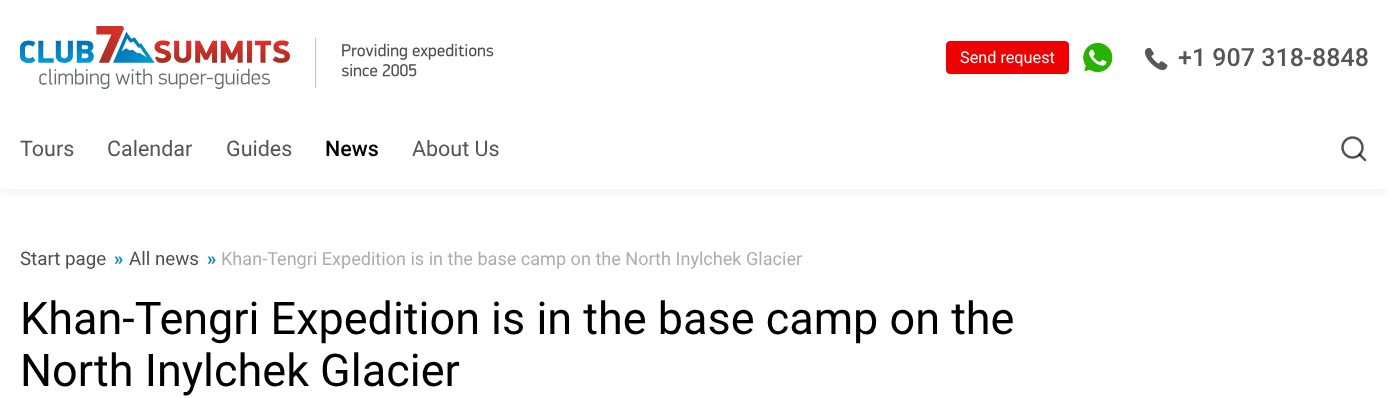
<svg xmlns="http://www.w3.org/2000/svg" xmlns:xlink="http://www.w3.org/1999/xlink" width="1388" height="398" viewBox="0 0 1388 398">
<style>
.cls-1{font:16.25px Roboto;fill:#ffffff}
.cls-2{font:500 25px Roboto;fill:#555555}
.cls-3{font:21.5px Roboto;fill:#555555}
.cls-4{font:500 21.5px Roboto;fill:#000000}
.cls-5{font:18.75px Roboto;fill:#4f4f4f}
.cls-6{font:bold 18.75px Roboto;fill:#0b84be}
.cls-7{font:18.1px Roboto;fill:#aeadad}
.cls-8{font:45px Roboto;fill:#000000}
</style>
<defs>
<clipPath id="clip1"><rect x="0" y="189" width="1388" height="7"/></clipPath>
</defs>
<rect width="100%" height="100%" fill="#ffffff"/>
<g clip-path="url(#clip1)">
<rect fill="#000000" fill-opacity="0.07" filter="blur(8px)" x="0" y="3" width="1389" height="188"/>
</g>
<image xlink:href="image0.png" x="20" y="26" width="270" height="63"/>
<rect fill="#bdbdbd" x="315" y="38" width="1" height="50"/>
<image xlink:href="image1.png" x="342" y="43" width="152" height="17"/>
<image xlink:href="image2.png" x="341" y="64" width="76" height="13"/>
<rect fill="#ee0000" stroke="#ee0000" x="946.5" y="41.5" width="122" height="32" rx="3.5"/>
<image xlink:href="image3.png" x="1083" y="42" width="30" height="31"/>
<image xlink:href="image4.png" x="1145" y="48" width="23" height="22"/>
<rect fill="#ffffff" x="11" y="188" width="1367" height="1"/>
<image xlink:href="image5.png" x="1341" y="136" width="26" height="26"/>
<text class="cls-1" x="960" y="63">Send request</text>
<text class="cls-2" x="1178" y="66">+1 907 318-8848</text>
<text class="cls-3" x="20" y="156">Tours</text>
<text class="cls-3" x="107" y="156">Calendar</text>
<text class="cls-3" x="226" y="156">Guides</text>
<text class="cls-4" x="325" y="156">News</text>
<text class="cls-3" x="412" y="156">About Us</text>
<text class="cls-5" x="20" y="265">Start page</text>
<text class="cls-6" x="114" y="265">»</text>
<text class="cls-5" x="129" y="265">All news</text>
<text class="cls-6" x="207" y="265">»</text>
<text class="cls-7" x="221" y="265">Khan-Tengri Expedition is in the base camp on the North Inylchek Glacier</text>
<text class="cls-8"><tspan x="20" y="334">Khan-Tengri Expedition is in the base camp on the</tspan><tspan x="20" y="386">North Inylchek Glacier</tspan></text>
</svg>
